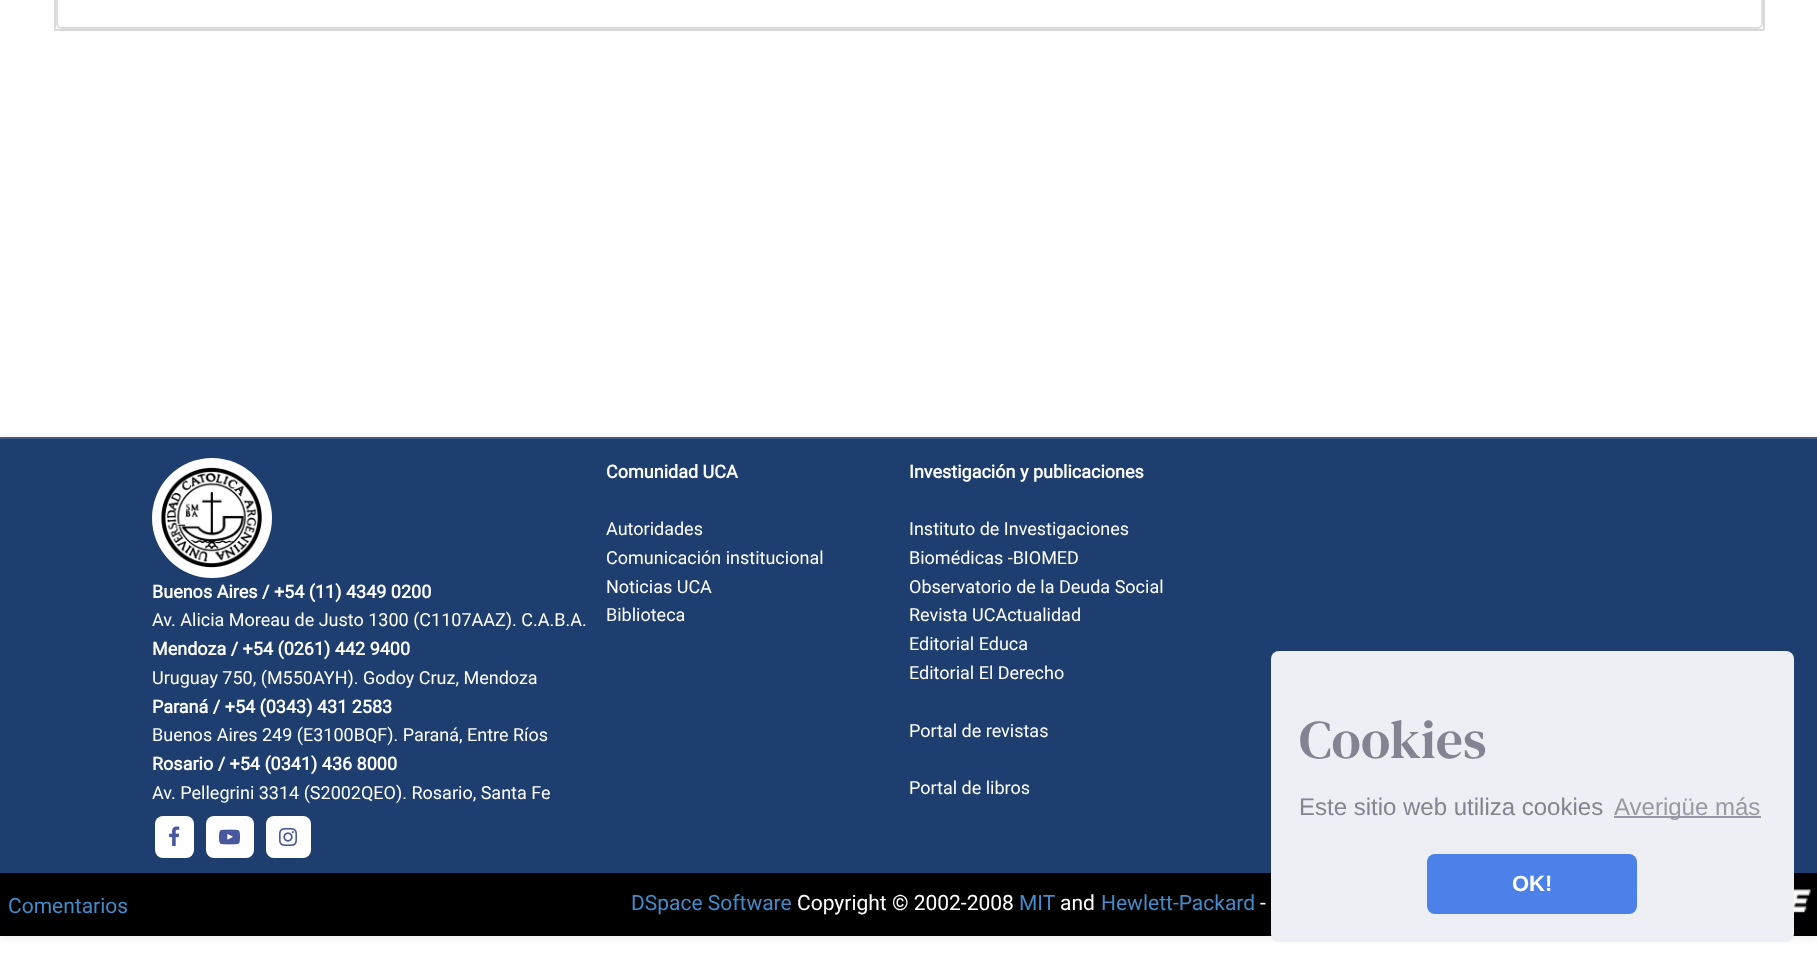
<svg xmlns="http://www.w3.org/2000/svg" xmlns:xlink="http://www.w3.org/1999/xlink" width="1817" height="966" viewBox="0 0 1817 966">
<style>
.cls-1{font:bold 18px Roboto;fill:#ffffff}
.cls-2{font:18px Roboto;fill:#ffffff}
.cls-3{font:21px Roboto;fill:#428bca}
.cls-4{font:21px Roboto;fill:#ffffff}
.cls-5{font:54px DM Serif Text;fill:#838391}
.cls-6{font:24px Liberation Sans;fill:#838391}
.cls-7{font:24px Liberation Sans;fill:#9899a5}
.cls-8{font:bold 22px Liberation Sans;fill:#ffffff}
</style>
<rect width="100%" height="100%" fill="#ffffff"/>
<rect fill="#dddddd" x="1763" y="0" width="2" height="30"/>
<rect fill="#dddddd" x="54" y="29" width="1710" height="2"/>
<rect fill="#dddddd" x="54" y="0" width="2" height="30"/>
<rect fill="#000000" fill-opacity="0.05" filter="blur(1.5px)" x="56" y="-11" width="1707" height="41" rx="6"/>
<rect fill="#ffffff" stroke="#dddddd" stroke-width="2" x="57" y="-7" width="1705" height="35" rx="5"/>
<rect fill="#000000" fill-opacity="0.07" filter="blur(4px)" x="0" y="438" width="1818" height="500"/>
<rect fill="#1e3e6f" x="0" y="439" width="1817" height="434"/>
<rect fill="#405b85" x="0" y="437" width="1817" height="2"/>
<circle fill="#ffffff" cx="212" cy="518" r="60"/>
<image xlink:href="image0.png" x="161" y="467" width="101" height="101"/>
<rect fill="#ffffff" x="155" y="816" width="39" height="42" rx="8"/>
<image xlink:href="image1.png" x="169" y="826" width="11" height="20"/>
<rect fill="#ffffff" x="206" y="816" width="48" height="42" rx="8"/>
<image xlink:href="image2.png" x="219" y="829" width="21" height="16"/>
<rect fill="#ffffff" x="266" y="816" width="45" height="42" rx="8"/>
<image xlink:href="image3.png" x="279" y="828" width="18" height="18"/>
<rect fill="#000000" x="0" y="873" width="1817" height="63"/>
<image xlink:href="image4.png" x="1794" y="889" width="17" height="24"/>
<rect fill="#edeff5" x="1271" y="651" width="523" height="291" rx="8"/>
<rect fill="#9899a5" x="1614" y="816" width="147" height="2"/>
<rect fill="#4b81e8" x="1427" y="854" width="210" height="60" rx="8"/>
<text class="cls-1" x="152" y="598">Buenos Aires / +54 (11) 4349 0200</text>
<text class="cls-2" x="152" y="626">Av. Alicia Moreau de Justo 1300 (C1107AAZ). C.A.B.A.</text>
<text class="cls-1" x="152" y="655">Mendoza / +54 (0261) 442 9400</text>
<text class="cls-2" x="152" y="684">Uruguay 750, (M550AYH). Godoy Cruz, Mendoza</text>
<text class="cls-1" x="152" y="713">Paraná / +54 (0343) 431 2583</text>
<text class="cls-2" x="152" y="741">Buenos Aires 249 (E3100BQF). Paraná, Entre Ríos</text>
<text class="cls-1" x="152" y="770">Rosario / +54 (0341) 436 8000</text>
<text class="cls-2" x="152" y="799">Av. Pellegrini 3314 (S2002QEO). Rosario, Santa Fe</text>
<text class="cls-1" x="606" y="478">Comunidad UCA</text>
<text class="cls-2"><tspan x="606" y="535">Autoridades</tspan><tspan x="606" y="564">Comunicación institucional</tspan><tspan x="606" y="593">Noticias UCA</tspan><tspan x="606" y="621">Biblioteca</tspan></text>
<text class="cls-1" x="909" y="478">Investigación y publicaciones</text>
<text class="cls-2"><tspan x="909" y="535">Instituto de Investigaciones</tspan><tspan x="909" y="564">Biomédicas -BIOMED</tspan><tspan x="909" y="593">Observatorio de la Deuda Social</tspan><tspan x="909" y="621">Revista UCActualidad</tspan><tspan x="909" y="650">Editorial Educa</tspan><tspan x="909" y="679">Editorial El Derecho</tspan></text>
<text class="cls-2" x="909" y="737">Portal de revistas</text>
<text class="cls-2" x="909" y="794">Portal de libros</text>
<text class="cls-3" x="8" y="913">Comentarios</text>
<text class="cls-3" x="631" y="910">DSpace Software</text>
<text class="cls-4" x="797" y="910">Copyright © 2002-2008</text>
<text class="cls-3" x="1019" y="910">MIT</text>
<text class="cls-4" x="1060" y="910">and</text>
<text class="cls-3" x="1101" y="910">Hewlett-Packard</text>
<text class="cls-4" x="1260" y="910">-</text>
<text class="cls-5" x="1299" y="758">Cookies</text>
<text class="cls-6" x="1299" y="815">Este sitio web utiliza cookies</text>
<text class="cls-7" x="1614" y="815">Averigüe más</text>
<text class="cls-8" x="1512" y="891">OK!</text>
</svg>
